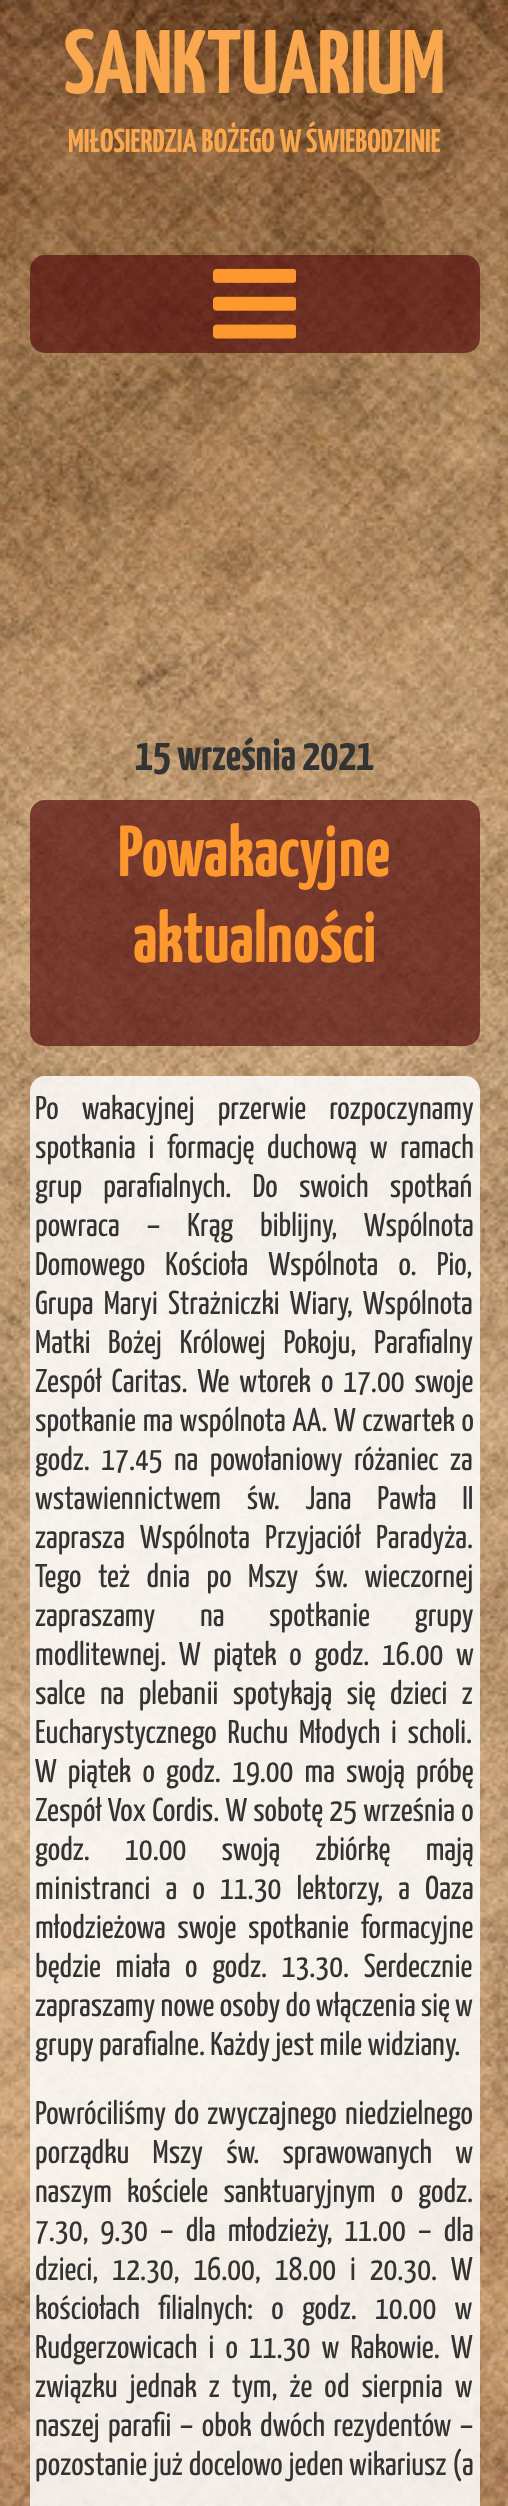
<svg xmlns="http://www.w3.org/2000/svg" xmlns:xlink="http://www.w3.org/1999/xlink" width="508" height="2506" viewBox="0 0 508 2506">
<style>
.cls-1{font:bold 90px Yanone Kaffeesatz;fill:#faa850}
.cls-2{font:bold 33px Yanone Kaffeesatz;fill:#faa850}
.cls-3{font:bold 45px Yanone Kaffeesatz;fill:#333333}
.cls-4{font:bold 72px Yanone Kaffeesatz;fill:#fc982d}
.cls-5{font:33px Yanone Kaffeesatz;fill:#333333}
</style>
<rect width="100%" height="100%" fill="#ffffff"/>
<image xlink:href="image0.png" x="0" y="0" width="508" height="2506"/>
<rect fill="#570f0f" fill-opacity="0.7" x="30" y="255" width="450" height="98" rx="15"/>
<image xlink:href="image1.png" x="213" y="268" width="83" height="71"/>
<rect fill="#570f0f" fill-opacity="0.7" x="30" y="800" width="450" height="246" rx="15"/>
<rect fill="#ffffff" fill-opacity="0.85" x="30" y="1076" width="450" height="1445" rx="15"/>
<text class="cls-1" x="64" y="93">SANKTUARIUM</text>
<text class="cls-2" x="68" y="152">MIŁOSIERDZIA BOŻEGO W ŚWIEBODZINIE</text>
<text class="cls-3" x="135" y="770">15 września 2021</text>
<text class="cls-4" x="118" y="876">Powakacyjne</text>
<text class="cls-4" x="133" y="962">aktualności</text>
<text class="cls-5"><tspan x="35" y="1119" word-spacing="18">Po wakacyjnej przerwie rozpoczynamy</tspan><tspan x="35" y="1158" word-spacing="7.5">spotkania i formację duchową w ramach</tspan><tspan x="35" y="1197" word-spacing="16">grup parafialnych. Do swoich spotkań</tspan><tspan x="35" y="1236" word-spacing="21.5">powraca – Krąg biblijny, Wspólnota</tspan><tspan x="35" y="1275" word-spacing="15">Domowego Kościoła Wspólnota o. Pio,</tspan><tspan x="35" y="1314" word-spacing="5">Grupa Maryi Strażniczki Wiary, Wspólnota</tspan><tspan x="35" y="1353" word-spacing="12.5">Matki Bożej Królowej Pokoju, Parafialny</tspan><tspan x="35" y="1392" word-spacing="4.75">Zespół Caritas. We wtorek o 17.00 swoje</tspan><tspan x="35" y="1431" word-spacing="1.5">spotkanie ma wspólnota AA. W czwartek o</tspan><tspan x="35" y="1470" word-spacing="6.25">godz. 17.45 na powołaniowy różaniec za</tspan><tspan x="35" y="1509" word-spacing="20.5">wstawiennictwem św. Jana Pawła II</tspan><tspan x="35" y="1548" word-spacing="10">zaprasza Wspólnota Przyjaciół Paradyża.</tspan><tspan x="35" y="1587" word-spacing="11.25">Tego też dnia po Mszy św. wieczornej</tspan><tspan x="35" y="1626" word-spacing="39.5">zapraszamy na spotkanie grupy</tspan><tspan x="35" y="1665" word-spacing="7.5">modlitewnej. W piątek o godz. 16.00 w</tspan><tspan x="35" y="1704" word-spacing="9.25">salce na plebanii spotykają się dzieci z</tspan><tspan x="35" y="1743" word-spacing="5.5">Eucharystycznego Ruchu Młodych i scholi.</tspan><tspan x="35" y="1782" word-spacing="6">W piątek o godz. 19.00 ma swoją próbę</tspan><tspan x="35" y="1821" word-spacing="1">Zespół Vox Cordis. W sobotę 25 września o</tspan><tspan x="35" y="1860" word-spacing="30">godz. 10.00 swoją zbiórkę mają</tspan><tspan x="35" y="1899" word-spacing="10">ministranci a o 11.30 lektorzy, a Oaza</tspan><tspan x="35" y="1938" word-spacing="6.5">młodzieżowa swoje spotkanie formacyjne</tspan><tspan x="35" y="1977" word-spacing="9.5">będzie miała o godz. 13.30. Serdecznie</tspan><tspan x="35" y="2016">zapraszamy nowe osoby do włączenia się w</tspan><tspan x="35" y="2055">grupy parafialne. Każdy jest mile widziany.</tspan></text>
<text class="cls-5"><tspan x="35" y="2124" word-spacing="3">Powróciliśmy do zwyczajnego niedzielnego</tspan><tspan x="35" y="2163" word-spacing="18">porządku Mszy św. sprawowanych w</tspan><tspan x="35" y="2202" word-spacing="10">naszym kościele sanktuaryjnym o godz.</tspan><tspan x="35" y="2241" word-spacing="6.75">7.30, 9.30 – dla młodzieży, 11.00 – dla</tspan><tspan x="35" y="2280" word-spacing="8.75">dzieci, 12.30, 16.00, 18.00 i 20.30. W</tspan><tspan x="35" y="2319" word-spacing="13">kościołach filialnych: o godz. 10.00 w</tspan><tspan x="35" y="2358" word-spacing="6">Rudgerzowicach i o 11.30 w Rakowie. W</tspan><tspan x="35" y="2397" word-spacing="6.75">związku jednak z tym, że od sierpnia w</tspan><tspan x="35" y="2436" word-spacing="3">naszej parafii – obok dwóch rezydentów –</tspan><tspan x="35" y="2475" word-spacing="0.5">pozostanie już docelowo jeden wikariusz (a</tspan></text>
</svg>
